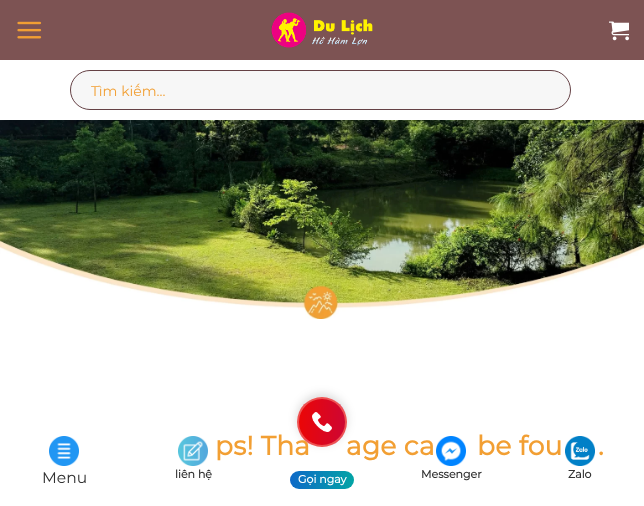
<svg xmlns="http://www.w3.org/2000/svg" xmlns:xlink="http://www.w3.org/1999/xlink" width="644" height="506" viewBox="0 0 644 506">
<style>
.cls-1{font:100 14px Montserrat;fill:#f29f33}
.cls-2{font:bold 26.5px Montserrat;letter-spacing:0.25px;fill:#f29f33}
.cls-3{font:100 15.5px Montserrat;fill:#313131}
.cls-4{font:bold 11px Montserrat;fill:#313131}
.cls-5{font:bold 11px Montserrat;fill:#ffffff}
</style>
<defs>
<linearGradient id="g1" gradientUnits="userSpaceOnUse" x1="289" y1="478" x2="354" y2="482"><stop offset="0" stop-color="#0e68c8"/><stop offset="1" stop-color="#02a4a5"/></linearGradient>
<clipPath id="clip1"><rect x="297" y="397" width="50" height="50" rx="25"/></clipPath>
<linearGradient id="g2" gradientUnits="userSpaceOnUse" x1="298" y1="421" x2="346" y2="423"><stop offset="0" stop-color="#f90000"/><stop offset="1" stop-color="#950099"/></linearGradient>
</defs>
<rect width="100%" height="100%" fill="#ffffff"/>
<rect fill="#7d5353" x="0" y="0" width="644" height="60"/>
<image xlink:href="image0.png" x="17" y="21" width="25" height="18"/>
<image xlink:href="image1.png" x="271" y="12" width="102" height="36"/>
<image xlink:href="image2.png" x="609" y="21" width="20" height="20"/>
<rect fill="#f7f7f7" stroke="#654145" x="70.5" y="70.5" width="500" height="39" rx="19.5"/>
<image xlink:href="image3.png" x="0" y="120" width="644" height="199"/>
<image xlink:href="image4.png" x="49" y="436" width="30" height="30"/>
<image xlink:href="image5.png" x="178" y="436" width="30" height="30"/>
<rect fill="#000000" fill-opacity="0.15" filter="blur(5px)" x="297" y="394" width="50" height="50" rx="25"/>
<rect fill="url(#g1)" x="290" y="471" width="64" height="18" rx="9"/>
<image xlink:href="image7.png" x="436" y="436" width="30" height="30"/>
<image xlink:href="image8.png" x="565" y="436" width="30" height="30"/>
<text class="cls-1" x="91" y="96">Tìm kiếm...</text>
<text class="cls-2" x="215" y="455">ps! Tha</text>
<text class="cls-2" x="346" y="455">age ca</text>
<text class="cls-2" x="477" y="455">be fou</text>
<text class="cls-2" x="598" y="455">.</text>
<text class="cls-3" x="42" y="483">Menu</text>
<text class="cls-4" x="175" y="478">liên hệ</text>
<g clip-path="url(#clip1)">
<rect fill="url(#g2)" x="299" y="399" width="46" height="46"/>
</g>
<circle fill="none" stroke="#ffffff" stroke-width="2" cx="322" cy="422" r="24"/>
<circle fill="#e60808" fill-opacity="0.7" cx="322" cy="422" r="25"/>
<image xlink:href="image6.png" x="312" y="412" width="20" height="20"/>
<text class="cls-5" x="298" y="483">Gọi ngay</text>
<text class="cls-4" x="421" y="478">Messenger</text>
<text class="cls-4" x="568" y="478">Zalo</text>
</svg>
